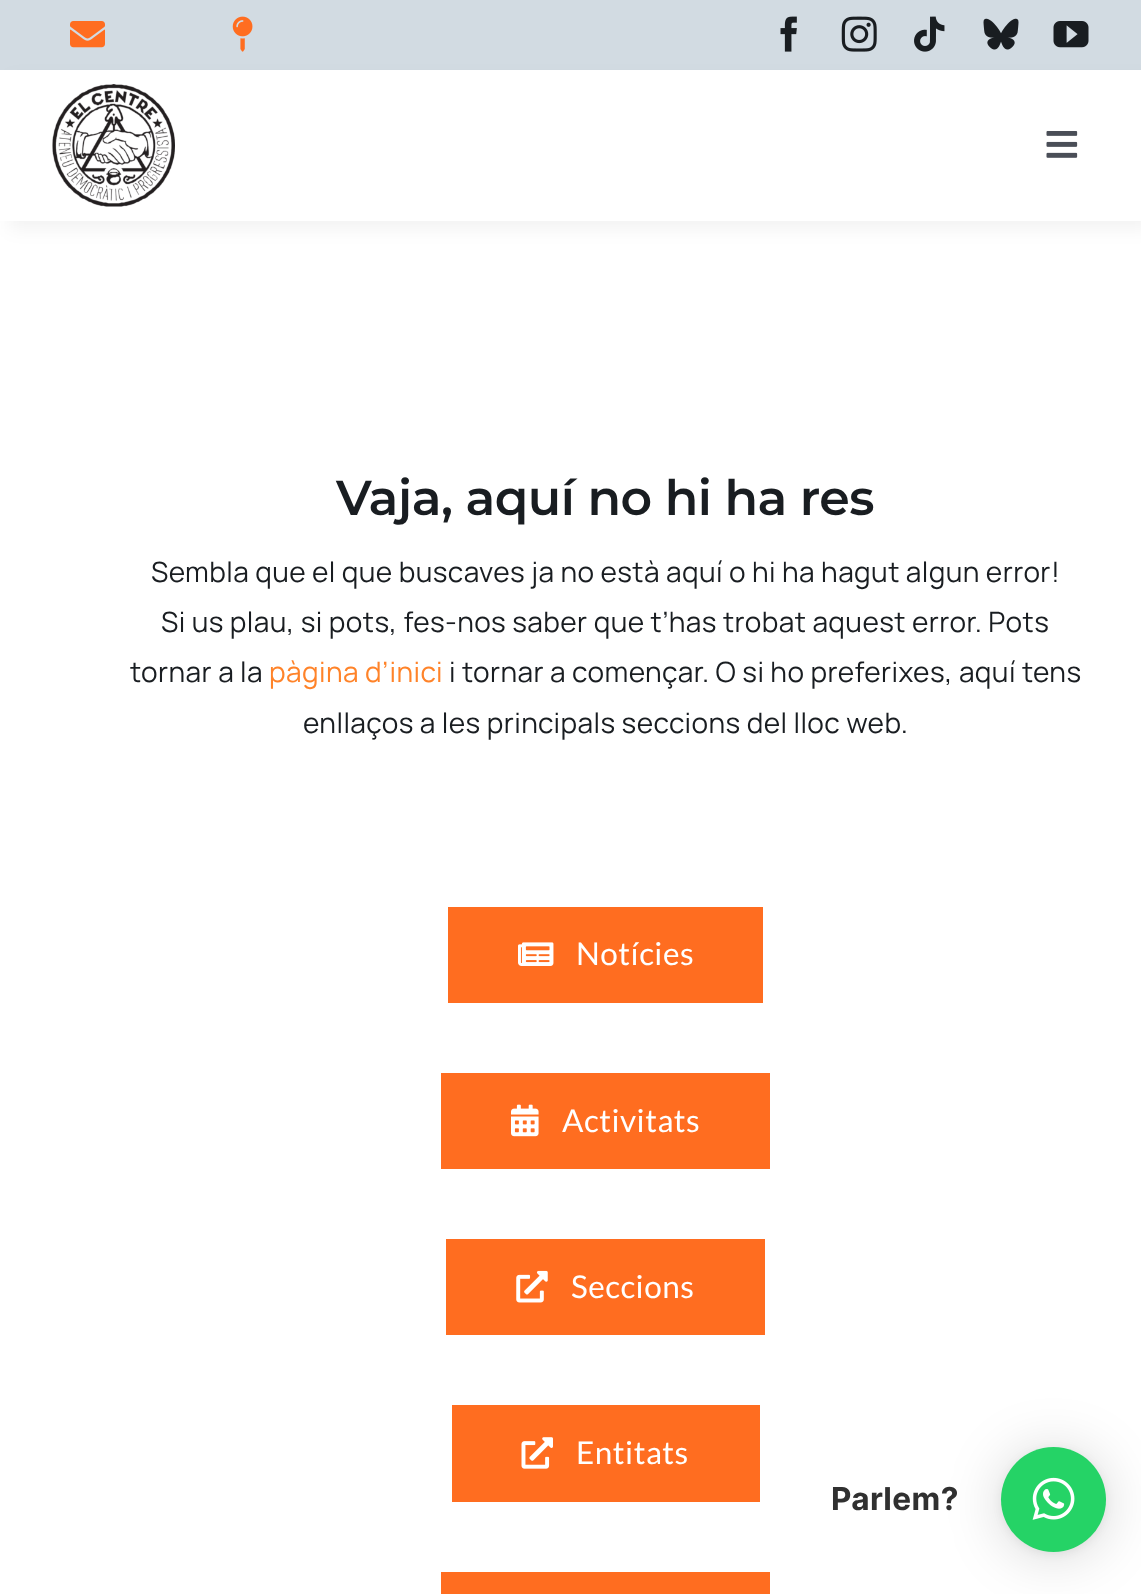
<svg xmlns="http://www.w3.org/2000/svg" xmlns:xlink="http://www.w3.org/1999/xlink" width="1141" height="1594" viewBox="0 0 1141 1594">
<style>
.cls-1{font:100 49px Montserrat;letter-spacing:-0.5px;fill:#191d21}
.cls-2{font:200 28px Manrope;letter-spacing:0.42px;fill:#191d21}
.cls-3{font:200 28px Manrope;letter-spacing:0.42px;fill:#ff8329}
.cls-4{font:31.5px Lato;letter-spacing:0.5px;fill:#ffffff}
.cls-5{font:bold 31.5px Inter;letter-spacing:0.42px;fill:#303030}
</style>
<defs>
<clipPath id="clip1"><path d="M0 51H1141V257H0ZM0 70H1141V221H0Z" clip-rule="evenodd"/></clipPath>
</defs>
<rect width="100%" height="100%" fill="#ffffff"/>
<rect fill="#d2dbe2" x="0" y="0" width="1141" height="70"/>
<image xlink:href="image0.png" x="70" y="21" width="35" height="27"/>
<image xlink:href="image1.png" x="232" y="16" width="21" height="36"/>
<image xlink:href="image2.png" x="780" y="16" width="17" height="36"/>
<image xlink:href="image3.png" x="841" y="16" width="36" height="36"/>
<image xlink:href="image4.png" x="914" y="16" width="31" height="36"/>
<image xlink:href="image5.png" x="983" y="18" width="36" height="32"/>
<image xlink:href="image6.png" x="1053" y="21" width="36" height="27"/>
<g clip-path="url(#clip1)">
<rect fill="#020303" fill-opacity="0.05" filter="blur(9px)" x="9" y="79" width="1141" height="150"/>
</g>
<image xlink:href="image7.png" x="52" y="84" width="123" height="123"/>
<image xlink:href="image8.png" x="1046" y="131" width="32" height="27"/>
<rect fill="#ff6d20" x="448" y="907" width="315" height="96"/>
<image xlink:href="image9.png" x="518" y="942" width="36" height="24"/>
<rect fill="#ff6d20" x="441" y="1073" width="329" height="96"/>
<image xlink:href="image10.png" x="511" y="1104" width="28" height="33"/>
<rect fill="#ff6d20" x="446" y="1239" width="319" height="96"/>
<image xlink:href="image11.png" x="516" y="1270" width="32" height="33"/>
<rect fill="#ff6d20" x="452" y="1405" width="308" height="97"/>
<image xlink:href="image12.png" x="521" y="1437" width="32" height="32"/>
<rect fill="#ff6d20" x="441" y="1572" width="329" height="22"/>
<rect fill="#000000" fill-opacity="0.16" filter="blur(28px)" x="1001" y="1451" width="105" height="105" rx="52.5"/>
<rect fill="#000000" fill-opacity="0.06" filter="blur(5px)" x="1001" y="1449" width="105" height="105" rx="52.5"/>
<circle fill="#25d366" cx="1053.5" cy="1499.5" r="52.5"/>
<image xlink:href="image13.png" x="1032" y="1477" width="43" height="43"/>
<text class="cls-1" x="336" y="515">Vaja, aquí no hi ha res</text>
<text class="cls-2" x="151" y="582">Sembla que el que buscaves ja no està aquí o hi ha hagut algun error!</text>
<text class="cls-2" x="161" y="632">Si us plau, si pots, fes-nos saber que t’has trobat aquest error. Pots</text>
<text class="cls-2" x="130" y="682">tornar a la</text>
<text class="cls-3" x="269" y="682">pàgina d’inici</text>
<text class="cls-2" x="449" y="682">i tornar a començar. O si ho preferixes, aquí tens</text>
<text class="cls-2" x="303" y="733">enllaços a les principals seccions del lloc web.</text>
<text class="cls-4" x="576" y="965">Notícies</text>
<text class="cls-4" x="562" y="1132">Activitats</text>
<text class="cls-4" x="571" y="1298">Seccions</text>
<text class="cls-4" x="576" y="1464">Entitats</text>
<text class="cls-5" x="831" y="1510">Parlem?</text>
</svg>
